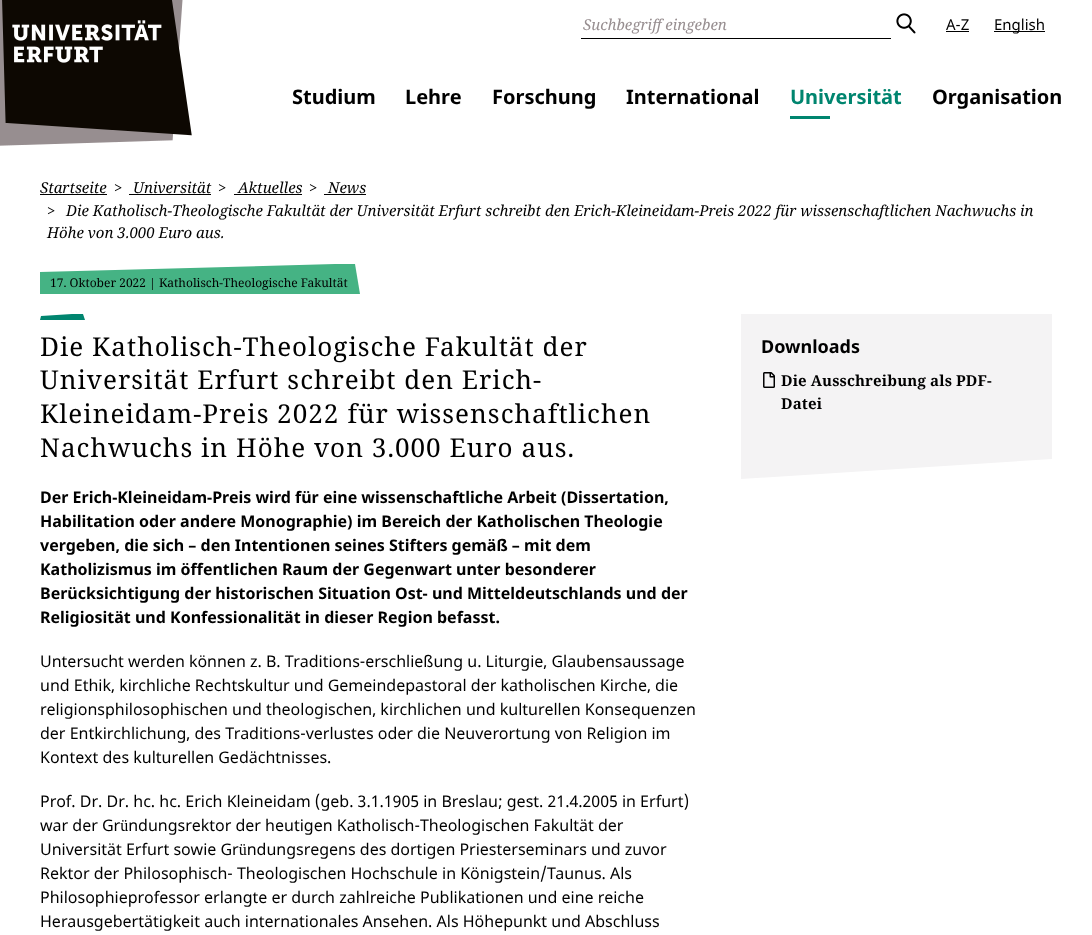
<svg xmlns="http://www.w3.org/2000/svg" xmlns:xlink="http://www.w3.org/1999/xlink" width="1092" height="935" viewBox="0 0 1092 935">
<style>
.cls-1{font:italic 15px Noto Serif;fill:#978e90}
.cls-2{font:15px Noto Sans;fill:#000000}
.cls-3{font:bold 20px Noto Sans;fill:#000000}
.cls-4{font:bold 20px Noto Sans;fill:#00856f}
.cls-5{font:italic 15px Noto Serif;fill:#000000}
.cls-6{font:12px Noto Serif;fill:#000000}
.cls-7{font:26px Noto Serif;letter-spacing:1.05px;fill:#000000}
.cls-8{font:bold 16px Noto Sans;fill:#000000}
.cls-9{font:16px Noto Sans;fill:#000000}
.cls-10{font:bold 18px Noto Sans;fill:#000000}
.cls-11{font:bold 15px Noto Serif;letter-spacing:0.15px;fill:#000000}
</style>
<rect width="100%" height="100%" fill="#ffffff"/>
<image xlink:href="image0.png" x="0" y="0" width="192" height="146"/>
<rect fill="#000000" x="581" y="38" width="310" height="1"/>
<image xlink:href="image1.png" x="896" y="13" width="20" height="21"/>
<rect fill="#000000" x="946" y="31" width="23" height="1"/>
<rect fill="#000000" x="994" y="31" width="51" height="1"/>
<rect fill="#00856f" x="790" y="116" width="40" height="3"/>
<rect fill="#000000" x="40" y="194" width="67" height="1"/>
<rect fill="#000000" x="129" y="194" width="82" height="1"/>
<rect fill="#000000" x="234" y="194" width="68" height="1"/>
<rect fill="#000000" x="324" y="194" width="42" height="1"/>
<path fill="#45b384" d="M40 272V294H360L355 264H335Z"/>
<path fill="#00856f" d="M41 316L40 320H85L83 314H72Z"/>
<path fill="#f4f3f4" d="M1052 314V459L741 479V314Z"/>
<image xlink:href="image2.png" x="763" y="372" width="12" height="16"/>
<text class="cls-1" x="583" y="30">Suchbegriff eingeben</text>
<text class="cls-2" x="946" y="30">A-Z</text>
<text class="cls-2" x="994" y="30">English</text>
<text class="cls-3" x="292" y="104">Studium</text>
<text class="cls-3" x="405" y="104">Lehre</text>
<text class="cls-3" x="492" y="104">Forschung</text>
<text class="cls-3" x="626" y="104">International</text>
<text class="cls-4" x="790" y="104">Universität</text>
<text class="cls-3" x="932" y="104">Organisation</text>
<text class="cls-5" x="40" y="193">Startseite</text>
<text class="cls-5" x="114" y="193">&gt;</text>
<text class="cls-5" x="133" y="193">Universität</text>
<text class="cls-5" x="218" y="193">&gt;</text>
<text class="cls-5" x="238" y="193">Aktuelles</text>
<text class="cls-5" x="309" y="193">&gt;</text>
<text class="cls-5" x="328" y="193">News</text>
<text class="cls-5" x="47" y="216">&gt;</text>
<text class="cls-5" x="66" y="216">Die Katholisch-Theologische Fakultät der Universität Erfurt schreibt den Erich-Kleineidam-Preis 2022 für wissenschaftlichen Nachwuchs in</text>
<text class="cls-5" x="47" y="238">Höhe von 3.000 Euro aus.</text>
<text class="cls-6" x="50" y="287">17. Oktober 2022 | Katholisch-Theologische Fakultät</text>
<text class="cls-7"><tspan x="40" y="356">Die Katholisch-Theologische Fakultät der</tspan><tspan x="40" y="389">Universität Erfurt schreibt den Erich-</tspan><tspan x="40" y="423">Kleineidam-Preis 2022 für wissenschaftlichen</tspan><tspan x="40" y="457">Nachwuchs in Höhe von 3.000 Euro aus.</tspan></text>
<text class="cls-8"><tspan x="40" y="503">Der Erich-Kleineidam-Preis wird für eine wissenschaftliche Arbeit (Dissertation,</tspan><tspan x="40" y="527">Habilitation oder andere Monographie) im Bereich der Katholischen Theologie</tspan><tspan x="40" y="551">vergeben, die sich – den Intentionen seines Stifters gemäß – mit dem</tspan><tspan x="40" y="575">Katholizismus im öffentlichen Raum der Gegenwart unter besonderer</tspan><tspan x="40" y="599">Berücksichtigung der historischen Situation Ost- und Mitteldeutschlands und der</tspan><tspan x="40" y="623">Religiosität und Konfessionalität in dieser Region befasst.</tspan></text>
<text class="cls-9"><tspan x="40" y="667">Untersucht werden können z. B. Traditions-erschließung u. Liturgie, Glaubensaussage</tspan><tspan x="40" y="691">und Ethik, kirchliche Rechtskultur und Gemeindepastoral der katholischen Kirche, die</tspan><tspan x="40" y="715">religionsphilosophischen und theologischen, kirchlichen und kulturellen Konsequenzen</tspan><tspan x="40" y="739">der Entkirchlichung, des Traditions-verlustes oder die Neuverortung von Religion im</tspan><tspan x="40" y="763">Kontext des kulturellen Gedächtnisses.</tspan></text>
<text class="cls-9"><tspan x="40" y="807">Prof. Dr. Dr. hc. hc. Erich Kleineidam (geb. 3.1.1905 in Breslau; gest. 21.4.2005 in Erfurt)</tspan><tspan x="40" y="831">war der Gründungsrektor der heutigen Katholisch-Theologischen Fakultät der</tspan><tspan x="40" y="855">Universität Erfurt sowie Gründungsregens des dortigen Priesterseminars und zuvor</tspan><tspan x="40" y="879">Rektor der Philosophisch- Theologischen Hochschule in Königstein/Taunus. Als</tspan><tspan x="40" y="903">Philosophieprofessor erlangte er durch zahlreiche Publikationen und eine reiche</tspan><tspan x="40" y="927">Herausgebertätigkeit auch internationales Ansehen. Als Höhepunkt und Abschluss</tspan></text>
<text class="cls-10" x="761" y="353">Downloads</text>
<text class="cls-11"><tspan x="781" y="386">Die Ausschreibung als PDF-</tspan><tspan x="781" y="409">Datei</tspan></text>
</svg>
